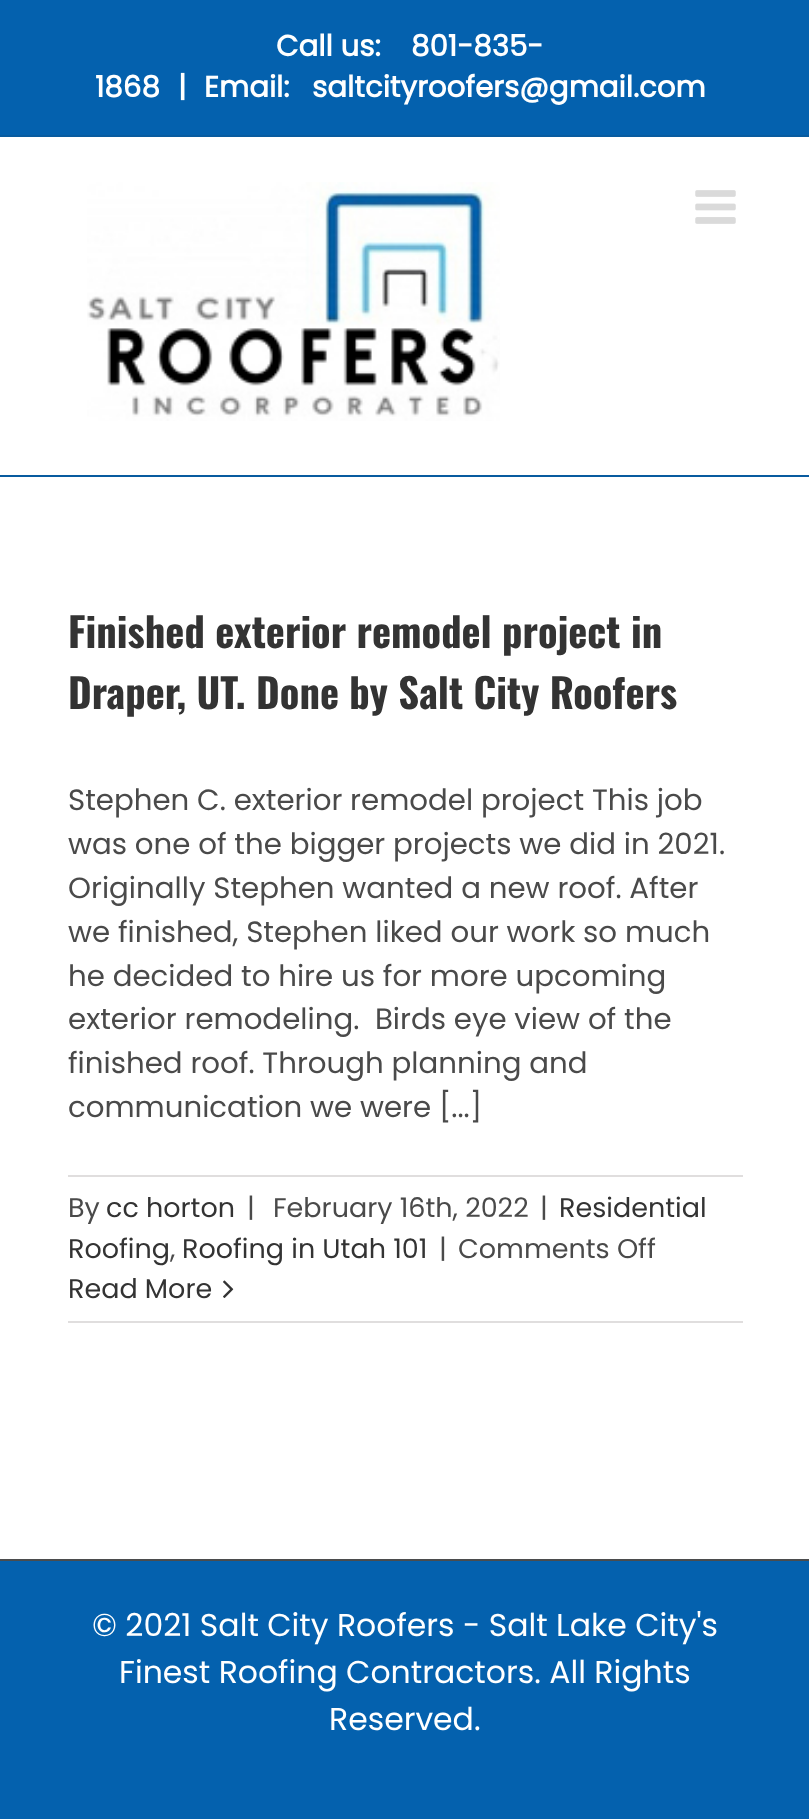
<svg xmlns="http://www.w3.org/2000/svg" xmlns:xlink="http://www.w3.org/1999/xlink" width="809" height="1819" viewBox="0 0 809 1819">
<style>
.cls-1{font:bold 29.25px Poppins;fill:#ffffff}
.cls-2{font:bold 40.5px Oswald;fill:#333333}
.cls-3{font:29.25px Poppins;fill:#4a4a4a}
.cls-4{font:27px Poppins;fill:#4a4a4a}
.cls-5{font:27px Poppins;fill:#333333}
.cls-6{font:31.5px Poppins;fill:#ffffff}
</style>
<rect width="100%" height="100%" fill="#ffffff"/>
<rect fill="#0461ae" x="0" y="0" width="809" height="135"/>
<rect fill="#085b9f" x="0" y="135" width="809" height="2"/>
<rect fill="#085b9f" x="0" y="475" width="809" height="2"/>
<image xlink:href="image0.png" x="87" y="182" width="413" height="239"/>
<image xlink:href="image1.png" x="695" y="190" width="41" height="34"/>
<rect fill="#e0dede" x="68" y="1175" width="675" height="2"/>
<rect fill="#e0dede" x="68" y="1321" width="675" height="2"/>
<image xlink:href="image2.png" x="223" y="1280" width="11" height="18"/>
<rect fill="#0461ae" x="0" y="1561" width="809" height="258"/>
<rect fill="#4b4c4d" x="0" y="1559" width="809" height="2"/>
<text class="cls-1" x="276" y="56">Call us:</text>
<text class="cls-1" x="411" y="56">801-835-</text>
<text class="cls-1" x="95" y="97">1868</text>
<text class="cls-1" x="178" y="97">|</text>
<text class="cls-1" x="204" y="97">Email:</text>
<text class="cls-1" x="312" y="97">saltcityroofers@gmail.com</text>
<text class="cls-2"><tspan x="68" y="648">Finished exterior remodel project in</tspan><tspan x="68" y="709">Draper, UT. Done by Salt City Roofers</tspan></text>
<text class="cls-3" xml:space="preserve"><tspan x="68" y="810">Stephen C. exterior remodel project This job</tspan><tspan x="68" y="854">was one of the bigger projects we did in 2021.</tspan><tspan x="68" y="898">Originally Stephen wanted a new roof. After</tspan><tspan x="68" y="942">we finished, Stephen liked our work so much</tspan><tspan x="68" y="986">he decided to hire us for more upcoming</tspan><tspan x="68" y="1029">exterior remodeling.  Birds eye view of the</tspan><tspan x="68" y="1073">finished roof. Through planning and</tspan><tspan x="68" y="1117">communication we were [...]</tspan></text>
<text class="cls-4" x="68" y="1217">By</text>
<text class="cls-5" x="106" y="1217">cc horton</text>
<text class="cls-4" x="247" y="1217">|</text>
<text class="cls-4" x="273" y="1217">February 16th, 2022</text>
<text class="cls-4" x="540" y="1217">|</text>
<text class="cls-5" x="559" y="1217">Residential</text>
<text class="cls-5" x="68" y="1258">Roofing</text>
<text class="cls-4" x="170" y="1258">,</text>
<text class="cls-5" x="182" y="1258">Roofing in Utah 101</text>
<text class="cls-4" x="439" y="1258">|</text>
<text class="cls-4" x="458" y="1258">Comments Off</text>
<text class="cls-5" x="68" y="1298">Read More</text>
<text class="cls-6" x="92" y="1636">© 2021 Salt City Roofers - Salt Lake City's</text>
<text class="cls-6" x="119" y="1683">Finest Roofing Contractors. All Rights</text>
<text class="cls-6" x="329" y="1730">Reserved.</text>
</svg>
